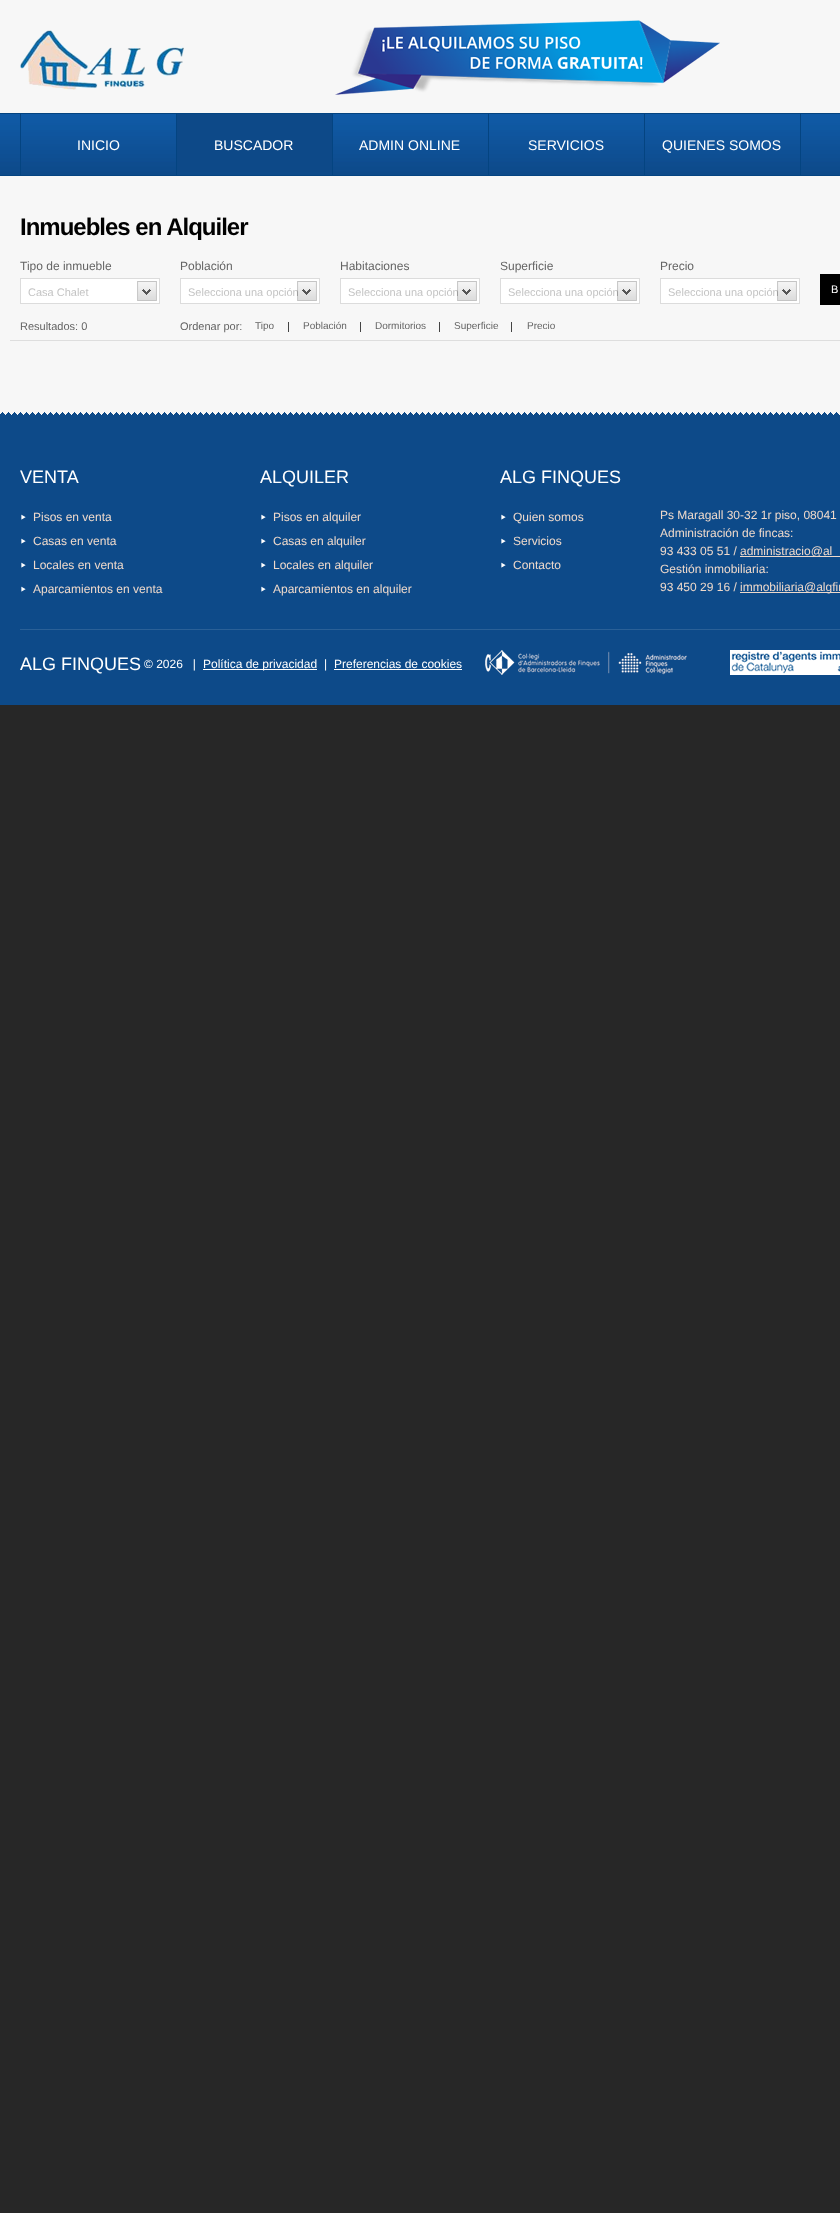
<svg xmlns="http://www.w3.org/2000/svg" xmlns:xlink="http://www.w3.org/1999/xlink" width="840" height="2213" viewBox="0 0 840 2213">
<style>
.cls-1{font:14px Liberation Sans;fill:#ffffff}
.cls-2{font:bold 24px Liberation Sans;letter-spacing:-1px;fill:#010101}
.cls-3{font:12px Liberation Sans;fill:#646464}
.cls-4{font:11px Liberation Sans;fill:#c4c4c4}
.cls-5{font:11px Liberation Sans;fill:#ffffff}
.cls-6{font:11px Liberation Sans;fill:#646464}
.cls-7{font:10px Liberation Sans;fill:#646464}
.cls-8{font:18px Liberation Sans;fill:#ffffff}
.cls-9{font:12px Liberation Sans;fill:#eed9cb}
.cls-10{font:12px Liberation Sans;fill:#ffffff}
</style>
<rect width="100%" height="100%" fill="#272727"/>
<rect fill="#f7f7f7" x="0" y="0" width="840" height="113"/>
<image xlink:href="image0.png" x="20" y="30" width="164" height="60"/>
<image xlink:href="image1.png" x="335" y="20" width="385" height="75"/>
<image xlink:href="image2.png" x="0" y="114" width="840" height="61"/>
<rect fill="#044481" x="0" y="113" width="840" height="1"/>
<rect fill="#044481" x="0" y="175" width="840" height="1"/>
<rect fill="#044481" x="20" y="114" width="1" height="61"/>
<rect fill="#044481" x="176" y="114" width="1" height="61"/>
<rect fill="#044481" x="332" y="114" width="1" height="61"/>
<rect fill="#0d4988" x="177" y="114" width="155" height="58"/>
<rect fill="#044481" x="488" y="114" width="1" height="61"/>
<rect fill="#044481" x="644" y="114" width="1" height="61"/>
<rect fill="#044481" x="800" y="114" width="1" height="61"/>
<rect fill="#f7f7f7" x="0" y="176" width="840" height="236"/>
<rect fill="#ffffff" stroke="#dcdcdc" x="20.5" y="278.5" width="139" height="25"/>
<image xlink:href="image3.png" x="137" y="281" width="20" height="20"/>
<rect fill="#ffffff" stroke="#dcdcdc" x="180.5" y="278.5" width="139" height="25"/>
<rect fill="#ffffff" stroke="#dcdcdc" x="340.5" y="278.5" width="139" height="25"/>
<rect fill="#ffffff" stroke="#dcdcdc" x="500.5" y="278.5" width="139" height="25"/>
<rect fill="#ffffff" stroke="#dcdcdc" x="660.5" y="278.5" width="139" height="25"/>
<rect fill="#000000" x="820" y="274" width="20" height="31"/>
<rect fill="#dedede" x="10" y="340" width="830" height="1"/>
<rect fill="#444444" x="288" y="322" width="1" height="10"/>
<rect fill="#444444" x="360" y="322" width="1" height="10"/>
<rect fill="#444444" x="439" y="322" width="1" height="10"/>
<rect fill="#444444" x="511" y="322" width="1" height="10"/>
<rect fill="#0d4a89" x="0" y="415" width="840" height="290"/>
<image xlink:href="image5.png" x="0" y="412" width="840" height="3"/>
<rect fill="#2a6097" x="20" y="629" width="820" height="1"/>
<image xlink:href="image6.png" x="21" y="514" width="5" height="6"/>
<image xlink:href="image6.png" x="21" y="538" width="5" height="6"/>
<image xlink:href="image6.png" x="21" y="562" width="5" height="6"/>
<image xlink:href="image6.png" x="21" y="586" width="5" height="6"/>
<image xlink:href="image6.png" x="261" y="514" width="5" height="6"/>
<image xlink:href="image6.png" x="261" y="538" width="5" height="6"/>
<image xlink:href="image6.png" x="261" y="562" width="5" height="6"/>
<image xlink:href="image6.png" x="261" y="586" width="5" height="6"/>
<image xlink:href="image6.png" x="501" y="514" width="5" height="6"/>
<image xlink:href="image6.png" x="501" y="538" width="5" height="6"/>
<image xlink:href="image6.png" x="501" y="562" width="5" height="6"/>
<rect fill="#eed9cb" x="740" y="556" width="100" height="1"/>
<rect fill="#eed9cb" x="740" y="592" width="100" height="1"/>
<rect fill="#ffffff" x="203" y="669" width="114" height="1"/>
<rect fill="#ffffff" x="334" y="669" width="128" height="1"/>
<image xlink:href="image7.png" x="485" y="650" width="202" height="25"/>
<image xlink:href="image8.png" x="730" y="650" width="110" height="25"/>
<text class="cls-1" x="77" y="150">INICIO</text>
<text class="cls-1" x="214" y="150">BUSCADOR</text>
<text class="cls-1" x="359" y="150">ADMIN ONLINE</text>
<text class="cls-1" x="528" y="150">SERVICIOS</text>
<text class="cls-1" x="662" y="150">QUIENES SOMOS</text>
<text class="cls-2" x="20" y="235">Inmuebles en Alquiler</text>
<text class="cls-3" x="20" y="270">Tipo de inmueble</text>
<text class="cls-4" x="28" y="296">Casa Chalet</text>
<text class="cls-3" x="180" y="270">Población</text>
<text class="cls-4" x="188" y="296">Selecciona una opción</text>
<image xlink:href="image4.png" x="297" y="281" width="20" height="20"/>
<text class="cls-3" x="340" y="270">Habitaciones</text>
<text class="cls-4" x="348" y="296">Selecciona una opción</text>
<image xlink:href="image4.png" x="457" y="281" width="20" height="20"/>
<text class="cls-3" x="500" y="270">Superficie</text>
<text class="cls-4" x="508" y="296">Selecciona una opción</text>
<image xlink:href="image4.png" x="617" y="281" width="20" height="20"/>
<text class="cls-3" x="660" y="270">Precio</text>
<text class="cls-4" x="668" y="296">Selecciona una opción</text>
<image xlink:href="image4.png" x="777" y="281" width="20" height="20"/>
<text class="cls-5" x="831" y="293">B</text>
<text class="cls-6" x="20" y="330">Resultados: 0</text>
<text class="cls-6" x="180" y="330">Ordenar por:</text>
<text class="cls-7" x="255" y="329">Tipo</text>
<text class="cls-7" x="303" y="329">Población</text>
<text class="cls-7" x="375" y="329">Dormitorios</text>
<text class="cls-7" x="454" y="329">Superficie</text>
<text class="cls-7" x="527" y="329">Precio</text>
<text class="cls-8" x="20" y="483">VENTA</text>
<text class="cls-9" x="33" y="521">Pisos en venta</text>
<text class="cls-9" x="33" y="545">Casas en venta</text>
<text class="cls-9" x="33" y="569">Locales en venta</text>
<text class="cls-9" x="33" y="593">Aparcamientos en venta</text>
<text class="cls-8" x="260" y="483">ALQUILER</text>
<text class="cls-9" x="273" y="521">Pisos en alquiler</text>
<text class="cls-9" x="273" y="545">Casas en alquiler</text>
<text class="cls-9" x="273" y="569">Locales en alquiler</text>
<text class="cls-9" x="273" y="593">Aparcamientos en alquiler</text>
<text class="cls-8" x="500" y="483">ALG FINQUES</text>
<text class="cls-9" x="513" y="521">Quien somos</text>
<text class="cls-9" x="513" y="545">Servicios</text>
<text class="cls-9" x="513" y="569">Contacto</text>
<text class="cls-9"><tspan x="660" y="519">Ps Maragall 30-32 1r piso, 08041</tspan><tspan x="660" y="537">Administración de fincas:</tspan><tspan x="660" y="555">93 433 05 51 /</tspan></text>
<text class="cls-9" x="740" y="555">administracio@al</text>
<text class="cls-9"><tspan x="660" y="573">Gestión inmobiliaria:</tspan><tspan x="660" y="591">93 450 29 16 /</tspan></text>
<text class="cls-9" x="740" y="591">immobiliaria@algfin</text>
<text class="cls-8" x="20" y="670">ALG FINQUES</text>
<text class="cls-10" xml:space="preserve" x="144" y="668">© 2026   |</text>
<text class="cls-10" x="203" y="668">Política de privacidad</text>
<text class="cls-10" x="324" y="668">|</text>
<text class="cls-10" x="334" y="668">Preferencias de cookies</text>
</svg>
